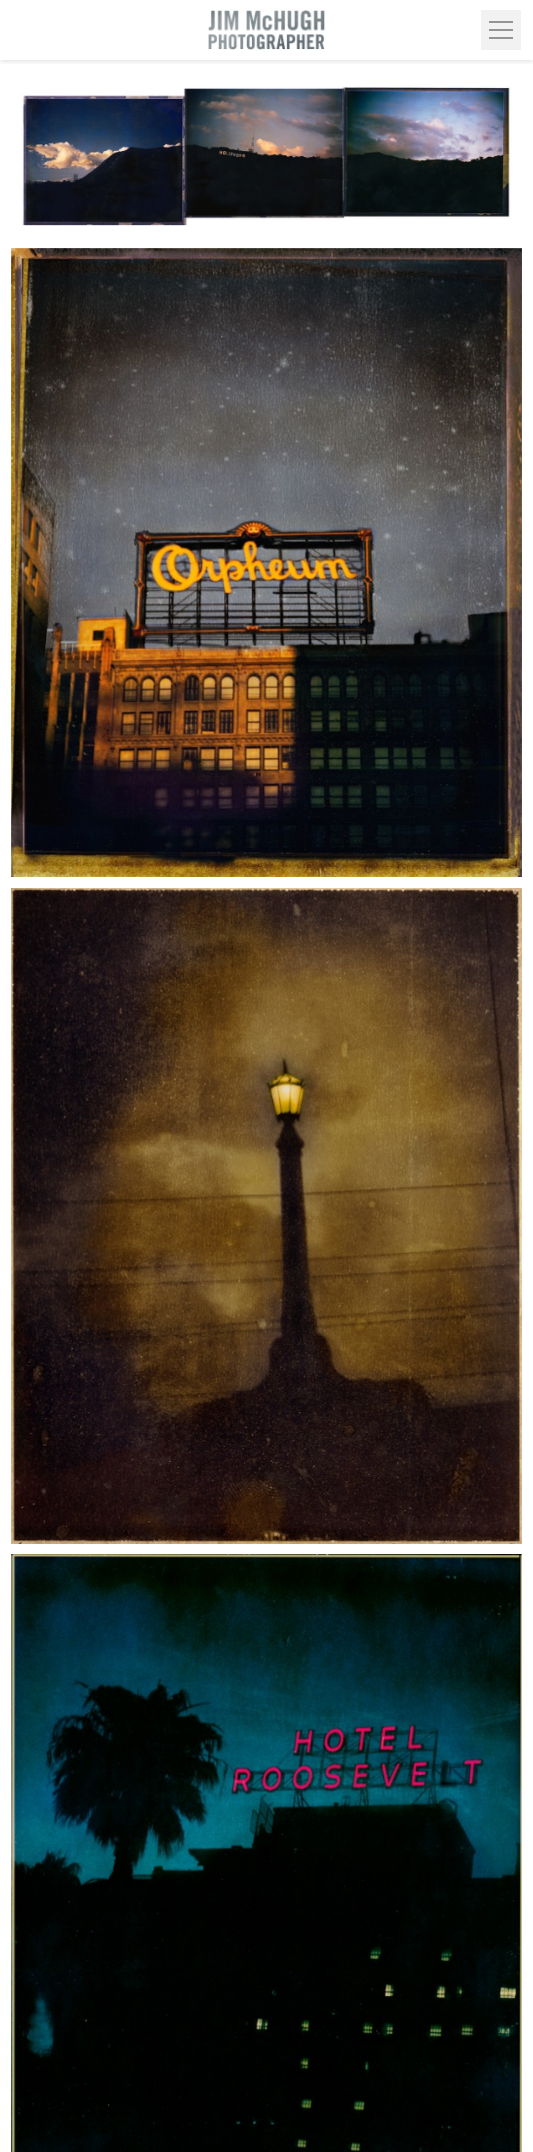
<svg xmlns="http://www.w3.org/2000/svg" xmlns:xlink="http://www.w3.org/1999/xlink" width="533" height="2152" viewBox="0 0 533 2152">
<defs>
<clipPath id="clip1"><rect x="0" y="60" width="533" height="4"/></clipPath>
</defs>
<rect width="100%" height="100%" fill="#ffffff"/>
<g clip-path="url(#clip1)">
<rect fill="#000000" fill-opacity="0.1" filter="blur(2px)" x="0" y="2" width="533" height="60"/>
</g>
<image xlink:href="image0.png" x="208" y="10" width="117" height="40"/>
<rect fill="#f2f2f2" x="481" y="10" width="40" height="40"/>
<rect fill="#949494" x="489" y="21" width="24" height="2"/>
<rect fill="#949494" x="489" y="29" width="24" height="2"/>
<rect fill="#949494" x="489" y="37" width="24" height="2"/>
<image xlink:href="image1.png" x="21" y="86" width="491" height="140"/>
<image xlink:href="image2.png" x="11" y="248" width="511" height="629"/>
<image xlink:href="image3.png" x="11" y="888" width="511" height="656"/>
<image xlink:href="image4.png" x="11" y="1554" width="511" height="598"/>
</svg>
